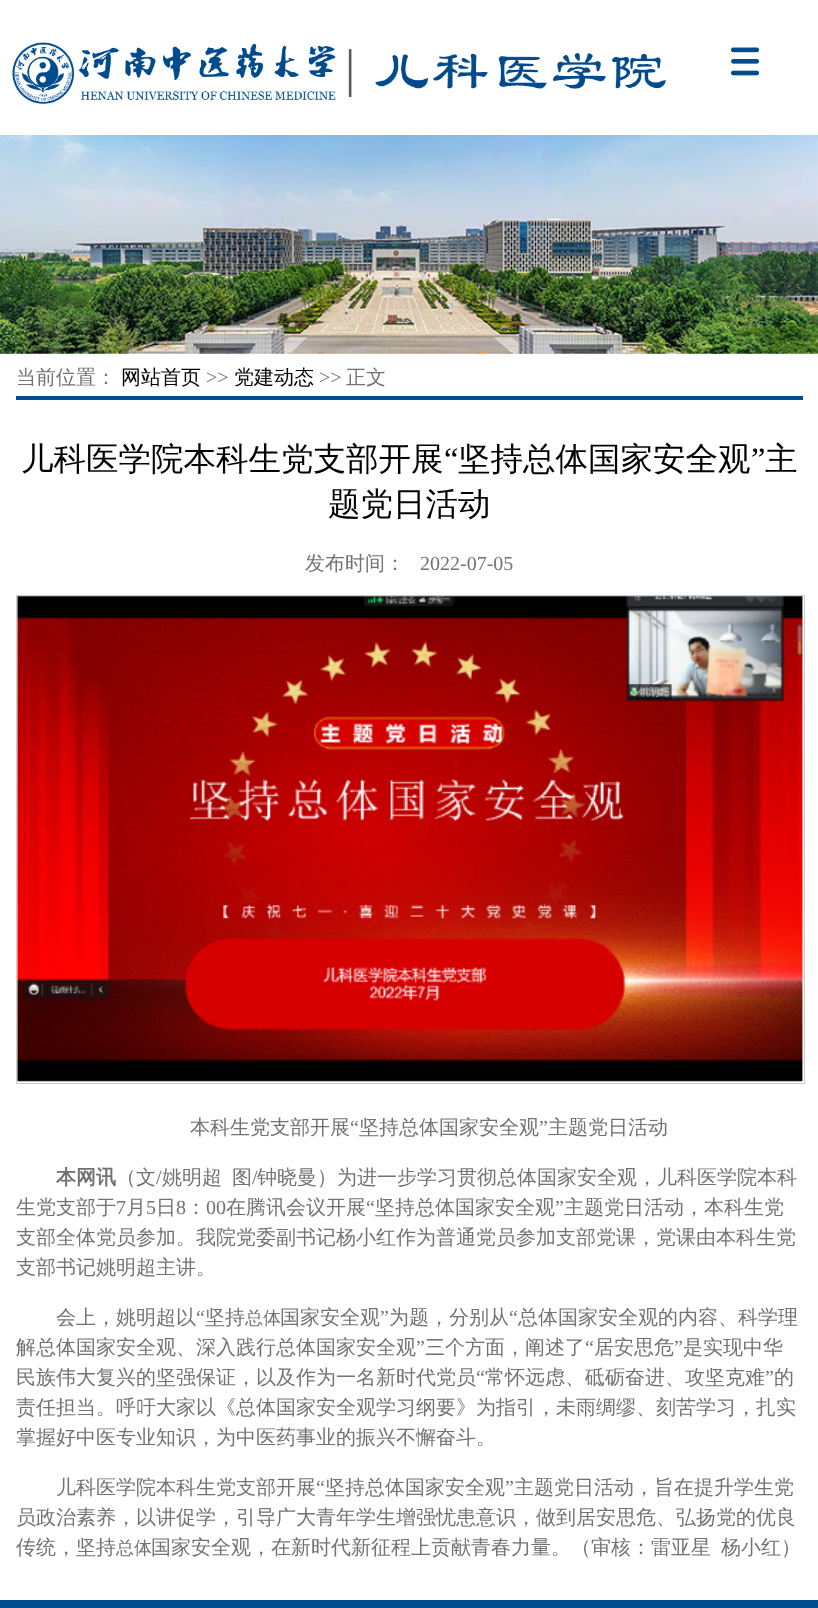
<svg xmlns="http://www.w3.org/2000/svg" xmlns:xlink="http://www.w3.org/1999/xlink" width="818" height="1608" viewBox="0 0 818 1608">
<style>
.cls-1{font:500 20px WenQuanYi Zen Hei;fill:#727272}
.cls-2{font:500 20px WenQuanYi Zen Hei;fill:#000000}
.cls-3{font:20px Liberation Serif;fill:#727272}
.cls-4{font:500 32.5px WenQuanYi Zen Hei;fill:#000000}
.cls-5{font:32.5px Liberation Serif;fill:#000000}
.cls-6{font:bold 20px WenQuanYi Zen Hei;fill:#727272}
.cls-7{font:500 18px WenQuanYi Zen Hei;fill:#727272}
</style>
<rect width="100%" height="100%" fill="#ffffff"/>
<image xlink:href="image0.png" x="12" y="42" width="654" height="62"/>
<image xlink:href="image1.png" x="731" y="47" width="29" height="29"/>
<image xlink:href="image2.png" x="0" y="135" width="818" height="219"/>
<rect fill="#004b8d" x="16" y="396" width="787" height="4"/>
<rect fill="none" stroke="#cccccc" x="16.5" y="595.5" width="788" height="488"/>
<image xlink:href="image3.png" x="17" y="596" width="786" height="486"/>
<rect fill="#004b8d" x="0" y="1600" width="818" height="8"/>
<text class="cls-1" x="16" y="384">当前位置：</text>
<text class="cls-2" x="121" y="384">网站首页</text>
<text class="cls-3" x="206" y="384">&gt;&gt;</text>
<text class="cls-2" x="234" y="384">党建动态</text>
<text class="cls-3" x="319" y="384">&gt;&gt;</text>
<text class="cls-1" x="346" y="384">正文</text>
<text class="cls-4" x="21" y="470">儿科医学院本科生党支部开展</text>
<text class="cls-5" x="444" y="470">“</text>
<text class="cls-4" x="458" y="470">坚持总体国家安全观</text>
<text class="cls-5" x="751" y="470">”</text>
<text class="cls-4" x="765" y="470">主</text>
<text class="cls-4" x="328" y="515">题党日活动</text>
<text class="cls-1" x="305" y="570">发布时间：</text>
<text class="cls-3" x="420" y="570">2022-07-05</text>
<text class="cls-1" x="190" y="1134">本科生党支部开展</text>
<text class="cls-3" x="350" y="1134">“</text>
<text class="cls-1" x="359" y="1134">坚持总体国家安全观</text>
<text class="cls-3" x="539" y="1134">”</text>
<text class="cls-1" x="548" y="1134">主题党日活动</text>
<text class="cls-6" x="56" y="1184">本网讯</text>
<text class="cls-1" x="116" y="1184">（文</text>
<text class="cls-3" x="156" y="1184">/</text>
<text class="cls-1" x="162" y="1184">姚明超</text>
<text class="cls-1" x="232" y="1184">图</text>
<text class="cls-3" x="252" y="1184">/</text>
<text class="cls-1" x="257" y="1184">钟晓曼）为进一步学习贯彻总体国家安全观，儿科医学院本科</text>
<text class="cls-1" x="16" y="1214">生党支部于</text>
<text class="cls-3" x="116" y="1214">7</text>
<text class="cls-1" x="126" y="1214">月</text>
<text class="cls-3" x="146" y="1214">5</text>
<text class="cls-1" x="156" y="1214">日</text>
<text class="cls-3" x="176" y="1214">8</text>
<text class="cls-1" x="186" y="1214">：</text>
<text class="cls-3" x="206" y="1214">00</text>
<text class="cls-1" x="226" y="1214">在腾讯会议开展</text>
<text class="cls-3" x="366" y="1214">“</text>
<text class="cls-1" x="375" y="1214">坚持总体国家安全观</text>
<text class="cls-3" x="555" y="1214">”</text>
<text class="cls-1" x="564" y="1214">主题党日活动，本科生党</text>
<text class="cls-1"><tspan x="16" y="1244">支部全体党员参加。我院党委副书记杨小红作为普通党员参加支部党课，党课由本科生党</tspan><tspan x="16" y="1274">支部书记姚明超主讲。</tspan></text>
<text class="cls-1" x="56" y="1324">会上，姚明超以</text>
<text class="cls-3" x="196" y="1324">“</text>
<text class="cls-1" x="205" y="1324">坚持</text>
<text class="cls-7" x="245" y="1324">总体</text>
<text class="cls-1" x="280" y="1324">国家安全观</text>
<text class="cls-3" x="380" y="1324">”</text>
<text class="cls-1" x="389" y="1324">为题，分别从</text>
<text class="cls-3" x="509" y="1324">“</text>
<text class="cls-1" x="518" y="1324">总体国家安全观的内容、科学理</text>
<text class="cls-1" x="16" y="1354">解总体国家安全观、深入践行总体国家安全观</text>
<text class="cls-3" x="416" y="1354">”</text>
<text class="cls-1" x="425" y="1354">三个方面，阐述了</text>
<text class="cls-3" x="585" y="1354">“</text>
<text class="cls-1" x="594" y="1354">居安思危</text>
<text class="cls-3" x="674" y="1354">”</text>
<text class="cls-1" x="683" y="1354">是实现中华</text>
<text class="cls-1" x="16" y="1384">民族伟大复兴的坚强保证，以及作为一名新时代党员</text>
<text class="cls-3" x="476" y="1384">“</text>
<text class="cls-1" x="485" y="1384">常怀远虑、砥砺奋进、攻坚克难</text>
<text class="cls-3" x="765" y="1384">”</text>
<text class="cls-1" x="774" y="1384">的</text>
<text class="cls-1"><tspan x="16" y="1414">责任担当。呼吁大家以《总体国家安全观学习纲要》为指引，未雨绸缪、刻苦学习，扎实</tspan><tspan x="16" y="1444">掌握好中医专业知识，为中医药事业的振兴不懈奋斗。</tspan></text>
<text class="cls-1" x="56" y="1494">儿科医学院本科生党支部开展</text>
<text class="cls-3" x="316" y="1494">“</text>
<text class="cls-1" x="325" y="1494">坚持总体国家安全观</text>
<text class="cls-3" x="505" y="1494">”</text>
<text class="cls-1" x="514" y="1494">主题党日活动，旨在提升学生党</text>
<text class="cls-1"><tspan x="16" y="1524">员政治素养，以讲促学，引导广大青年学生增强忧患意识，做到居安思危、弘扬党的优良</tspan><tspan x="16" y="1554">传统，坚持</tspan></text>
<text class="cls-7" x="116" y="1554">总体</text>
<text class="cls-1" x="151" y="1554">国家安全观，在新时代新征程上贡献青春力量。（审核：雷亚星</text>
<text class="cls-1" x="721" y="1554">杨小红）</text>
</svg>
